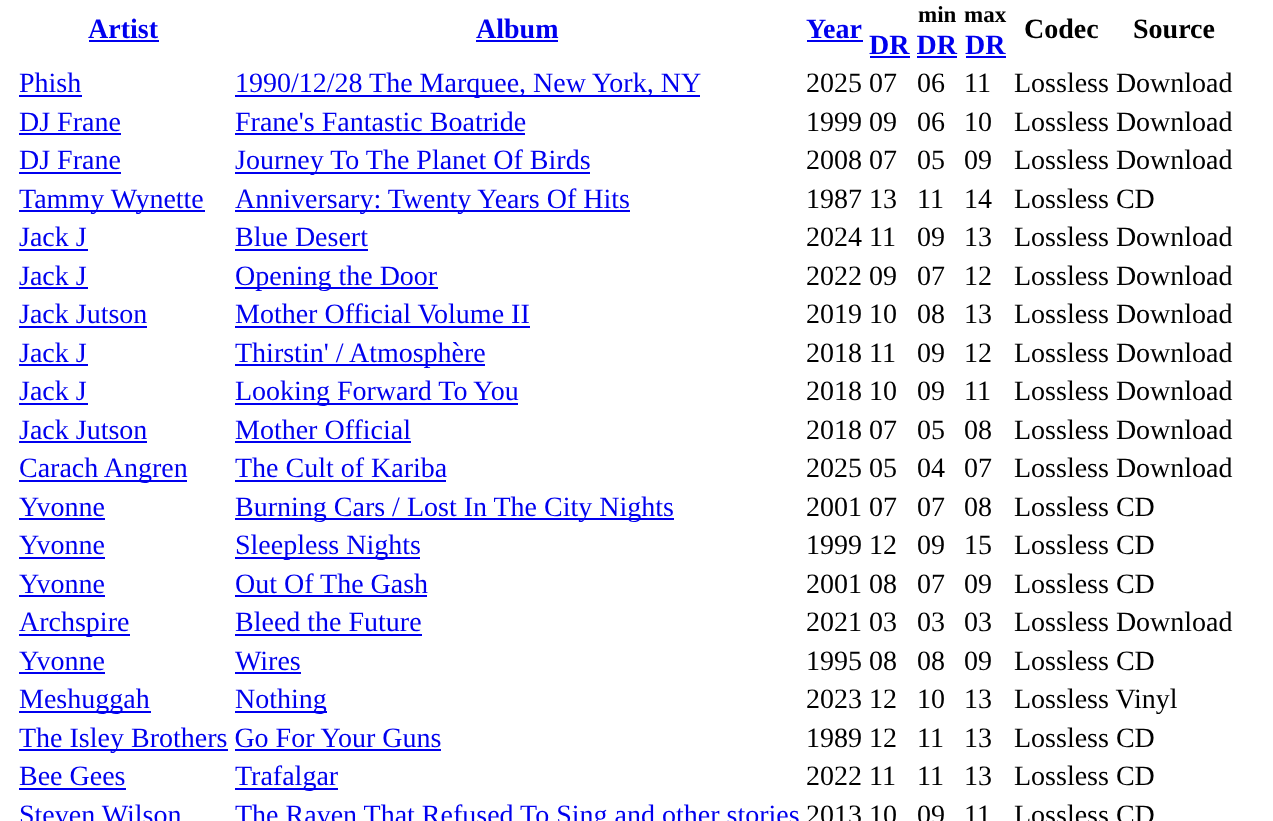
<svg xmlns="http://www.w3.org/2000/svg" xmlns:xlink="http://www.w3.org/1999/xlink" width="1273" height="821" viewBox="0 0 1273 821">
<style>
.cls-1{font:bold 28px Liberation Serif;fill:#0000ee}
.cls-2{font:bold 23px Liberation Serif;fill:#000000}
.cls-3{font:bold 28px Liberation Serif;fill:#000000}
.cls-4{font:28px Liberation Serif;fill:#0000ee}
.cls-5{font:28px Liberation Serif;fill:#000000}
</style>
<rect width="100%" height="100%" fill="#ffffff"/>
<rect fill="#0000ee" x="89" y="40" width="70" height="2"/>
<rect fill="#0000ee" x="476" y="40" width="82" height="2"/>
<rect fill="#0000ee" x="807" y="40" width="56" height="2"/>
<rect fill="#0000ee" x="917" y="56" width="40" height="2"/>
<rect fill="#0000ee" x="966" y="56" width="40" height="2"/>
<rect fill="#0000ee" x="870" y="56" width="40" height="2"/>
<rect fill="#0000ee" x="19" y="95" width="63" height="2"/>
<rect fill="#0000ee" x="235" y="95" width="465" height="2"/>
<rect fill="#0000ee" x="19" y="133" width="102" height="2"/>
<rect fill="#0000ee" x="235" y="133" width="290" height="2"/>
<rect fill="#0000ee" x="19" y="172" width="102" height="2"/>
<rect fill="#0000ee" x="235" y="172" width="355" height="2"/>
<rect fill="#0000ee" x="19" y="210" width="186" height="2"/>
<rect fill="#0000ee" x="235" y="210" width="395" height="2"/>
<rect fill="#0000ee" x="19" y="249" width="69" height="2"/>
<rect fill="#0000ee" x="235" y="249" width="133" height="2"/>
<rect fill="#0000ee" x="19" y="287" width="69" height="2"/>
<rect fill="#0000ee" x="235" y="287" width="203" height="2"/>
<rect fill="#0000ee" x="19" y="326" width="128" height="2"/>
<rect fill="#0000ee" x="235" y="326" width="295" height="2"/>
<rect fill="#0000ee" x="19" y="364" width="69" height="2"/>
<rect fill="#0000ee" x="235" y="364" width="250" height="2"/>
<rect fill="#0000ee" x="19" y="403" width="69" height="2"/>
<rect fill="#0000ee" x="235" y="403" width="283" height="2"/>
<rect fill="#0000ee" x="19" y="441" width="128" height="2"/>
<rect fill="#0000ee" x="235" y="441" width="176" height="2"/>
<rect fill="#0000ee" x="19" y="480" width="168" height="2"/>
<rect fill="#0000ee" x="235" y="480" width="211" height="2"/>
<rect fill="#0000ee" x="19" y="518" width="86" height="2"/>
<rect fill="#0000ee" x="235" y="518" width="439" height="2"/>
<rect fill="#0000ee" x="19" y="557" width="86" height="2"/>
<rect fill="#0000ee" x="235" y="557" width="185" height="2"/>
<rect fill="#0000ee" x="19" y="595" width="86" height="2"/>
<rect fill="#0000ee" x="235" y="595" width="192" height="2"/>
<rect fill="#0000ee" x="19" y="634" width="111" height="2"/>
<rect fill="#0000ee" x="235" y="634" width="187" height="2"/>
<rect fill="#0000ee" x="19" y="672" width="86" height="2"/>
<rect fill="#0000ee" x="235" y="672" width="66" height="2"/>
<rect fill="#0000ee" x="19" y="711" width="132" height="2"/>
<rect fill="#0000ee" x="235" y="711" width="92" height="2"/>
<rect fill="#0000ee" x="19" y="749" width="209" height="2"/>
<rect fill="#0000ee" x="235" y="749" width="206" height="2"/>
<rect fill="#0000ee" x="19" y="788" width="107" height="2"/>
<rect fill="#0000ee" x="235" y="788" width="103" height="2"/>
<text class="cls-1" x="88" y="38">Artist</text>
<text class="cls-1" x="476" y="38">Album</text>
<text class="cls-1" x="806" y="38">Year</text>
<text class="cls-2" x="918" y="22">min</text>
<text class="cls-2" x="964" y="22">max</text>
<text class="cls-1" x="965" y="54">DR</text>
<text class="cls-3" x="1024" y="38">Codec</text>
<text class="cls-3" x="1133" y="38">Source</text>
<text class="cls-1" x="869" y="54">DR DR</text>
<text class="cls-4" x="19" y="92">Phish</text>
<text class="cls-4" x="235" y="92">1990/12/28 The Marquee, New York, NY</text>
<text class="cls-5" x="806" y="92">2025 07</text>
<text class="cls-5" x="917" y="92">06</text>
<text class="cls-5" x="964" y="92">11</text>
<text class="cls-5" x="1014" y="92">Lossless Download</text>
<text class="cls-4" x="19" y="131">DJ Frane</text>
<text class="cls-4" x="235" y="131">Frane's Fantastic Boatride</text>
<text class="cls-5" x="806" y="131">1999 09</text>
<text class="cls-5" x="917" y="131">06</text>
<text class="cls-5" x="964" y="131">10</text>
<text class="cls-5" x="1014" y="131">Lossless Download</text>
<text class="cls-4" x="19" y="169">DJ Frane</text>
<text class="cls-4" x="235" y="169">Journey To The Planet Of Birds</text>
<text class="cls-5" x="806" y="169">2008 07</text>
<text class="cls-5" x="917" y="169">05</text>
<text class="cls-5" x="964" y="169">09</text>
<text class="cls-5" x="1014" y="169">Lossless Download</text>
<text class="cls-4" x="19" y="208">Tammy Wynette</text>
<text class="cls-4" x="235" y="208">Anniversary: Twenty Years Of Hits</text>
<text class="cls-5" x="806" y="208">1987 13</text>
<text class="cls-5" x="917" y="208">11</text>
<text class="cls-5" x="964" y="208">14</text>
<text class="cls-5" x="1014" y="208">Lossless CD</text>
<text class="cls-4" x="19" y="246">Jack J</text>
<text class="cls-4" x="235" y="246">Blue Desert</text>
<text class="cls-5" x="806" y="246">2024 11</text>
<text class="cls-5" x="917" y="246">09</text>
<text class="cls-5" x="964" y="246">13</text>
<text class="cls-5" x="1014" y="246">Lossless Download</text>
<text class="cls-4" x="19" y="285">Jack J</text>
<text class="cls-4" x="235" y="285">Opening the Door</text>
<text class="cls-5" x="806" y="285">2022 09</text>
<text class="cls-5" x="917" y="285">07</text>
<text class="cls-5" x="964" y="285">12</text>
<text class="cls-5" x="1014" y="285">Lossless Download</text>
<text class="cls-4" x="19" y="323">Jack Jutson</text>
<text class="cls-4" x="235" y="323">Mother Official Volume II</text>
<text class="cls-5" x="806" y="323">2019 10</text>
<text class="cls-5" x="917" y="323">08</text>
<text class="cls-5" x="964" y="323">13</text>
<text class="cls-5" x="1014" y="323">Lossless Download</text>
<text class="cls-4" x="19" y="362">Jack J</text>
<text class="cls-4" x="235" y="362">Thirstin' / Atmosphère</text>
<text class="cls-5" x="806" y="362">2018 11</text>
<text class="cls-5" x="917" y="362">09</text>
<text class="cls-5" x="964" y="362">12</text>
<text class="cls-5" x="1014" y="362">Lossless Download</text>
<text class="cls-4" x="19" y="400">Jack J</text>
<text class="cls-4" x="235" y="400">Looking Forward To You</text>
<text class="cls-5" x="806" y="400">2018 10</text>
<text class="cls-5" x="917" y="400">09</text>
<text class="cls-5" x="964" y="400">11</text>
<text class="cls-5" x="1014" y="400">Lossless Download</text>
<text class="cls-4" x="19" y="439">Jack Jutson</text>
<text class="cls-4" x="235" y="439">Mother Official</text>
<text class="cls-5" x="806" y="439">2018 07</text>
<text class="cls-5" x="917" y="439">05</text>
<text class="cls-5" x="964" y="439">08</text>
<text class="cls-5" x="1014" y="439">Lossless Download</text>
<text class="cls-4" x="19" y="477">Carach Angren</text>
<text class="cls-4" x="235" y="477">The Cult of Kariba</text>
<text class="cls-5" x="806" y="477">2025 05</text>
<text class="cls-5" x="917" y="477">04</text>
<text class="cls-5" x="964" y="477">07</text>
<text class="cls-5" x="1014" y="477">Lossless Download</text>
<text class="cls-4" x="19" y="516">Yvonne</text>
<text class="cls-4" x="235" y="516">Burning Cars / Lost In The City Nights</text>
<text class="cls-5" x="806" y="516">2001 07</text>
<text class="cls-5" x="917" y="516">07</text>
<text class="cls-5" x="964" y="516">08</text>
<text class="cls-5" x="1014" y="516">Lossless CD</text>
<text class="cls-4" x="19" y="554">Yvonne</text>
<text class="cls-4" x="235" y="554">Sleepless Nights</text>
<text class="cls-5" x="806" y="554">1999 12</text>
<text class="cls-5" x="917" y="554">09</text>
<text class="cls-5" x="964" y="554">15</text>
<text class="cls-5" x="1014" y="554">Lossless CD</text>
<text class="cls-4" x="19" y="593">Yvonne</text>
<text class="cls-4" x="235" y="593">Out Of The Gash</text>
<text class="cls-5" x="806" y="593">2001 08</text>
<text class="cls-5" x="917" y="593">07</text>
<text class="cls-5" x="964" y="593">09</text>
<text class="cls-5" x="1014" y="593">Lossless CD</text>
<text class="cls-4" x="19" y="631">Archspire</text>
<text class="cls-4" x="235" y="631">Bleed the Future</text>
<text class="cls-5" x="806" y="631">2021 03</text>
<text class="cls-5" x="917" y="631">03</text>
<text class="cls-5" x="964" y="631">03</text>
<text class="cls-5" x="1014" y="631">Lossless Download</text>
<text class="cls-4" x="19" y="670">Yvonne</text>
<text class="cls-4" x="235" y="670">Wires</text>
<text class="cls-5" x="806" y="670">1995 08</text>
<text class="cls-5" x="917" y="670">08</text>
<text class="cls-5" x="964" y="670">09</text>
<text class="cls-5" x="1014" y="670">Lossless CD</text>
<text class="cls-4" x="19" y="708">Meshuggah</text>
<text class="cls-4" x="235" y="708">Nothing</text>
<text class="cls-5" x="806" y="708">2023 12</text>
<text class="cls-5" x="917" y="708">10</text>
<text class="cls-5" x="964" y="708">13</text>
<text class="cls-5" x="1014" y="708">Lossless Vinyl</text>
<text class="cls-4" x="19" y="747">The Isley Brothers Go For Your Guns</text>
<text class="cls-5" x="806" y="747">1989 12</text>
<text class="cls-5" x="917" y="747">11</text>
<text class="cls-5" x="964" y="747">13</text>
<text class="cls-5" x="1014" y="747">Lossless CD</text>
<text class="cls-4" x="19" y="785">Bee Gees</text>
<text class="cls-4" x="235" y="785">Trafalgar</text>
<text class="cls-5" x="806" y="785">2022 11</text>
<text class="cls-5" x="917" y="785">11</text>
<text class="cls-5" x="964" y="785">13</text>
<text class="cls-5" x="1014" y="785">Lossless CD</text>
<text class="cls-4" x="19" y="824">Steven Wilson</text>
<text class="cls-4" x="235" y="824">The Raven That Refused To Sing and other stories</text>
<text class="cls-5" x="806" y="824">2013 10</text>
<text class="cls-5" x="917" y="824">09</text>
<text class="cls-5" x="964" y="824">11</text>
<text class="cls-5" x="1014" y="824">Lossless CD</text>
</svg>
